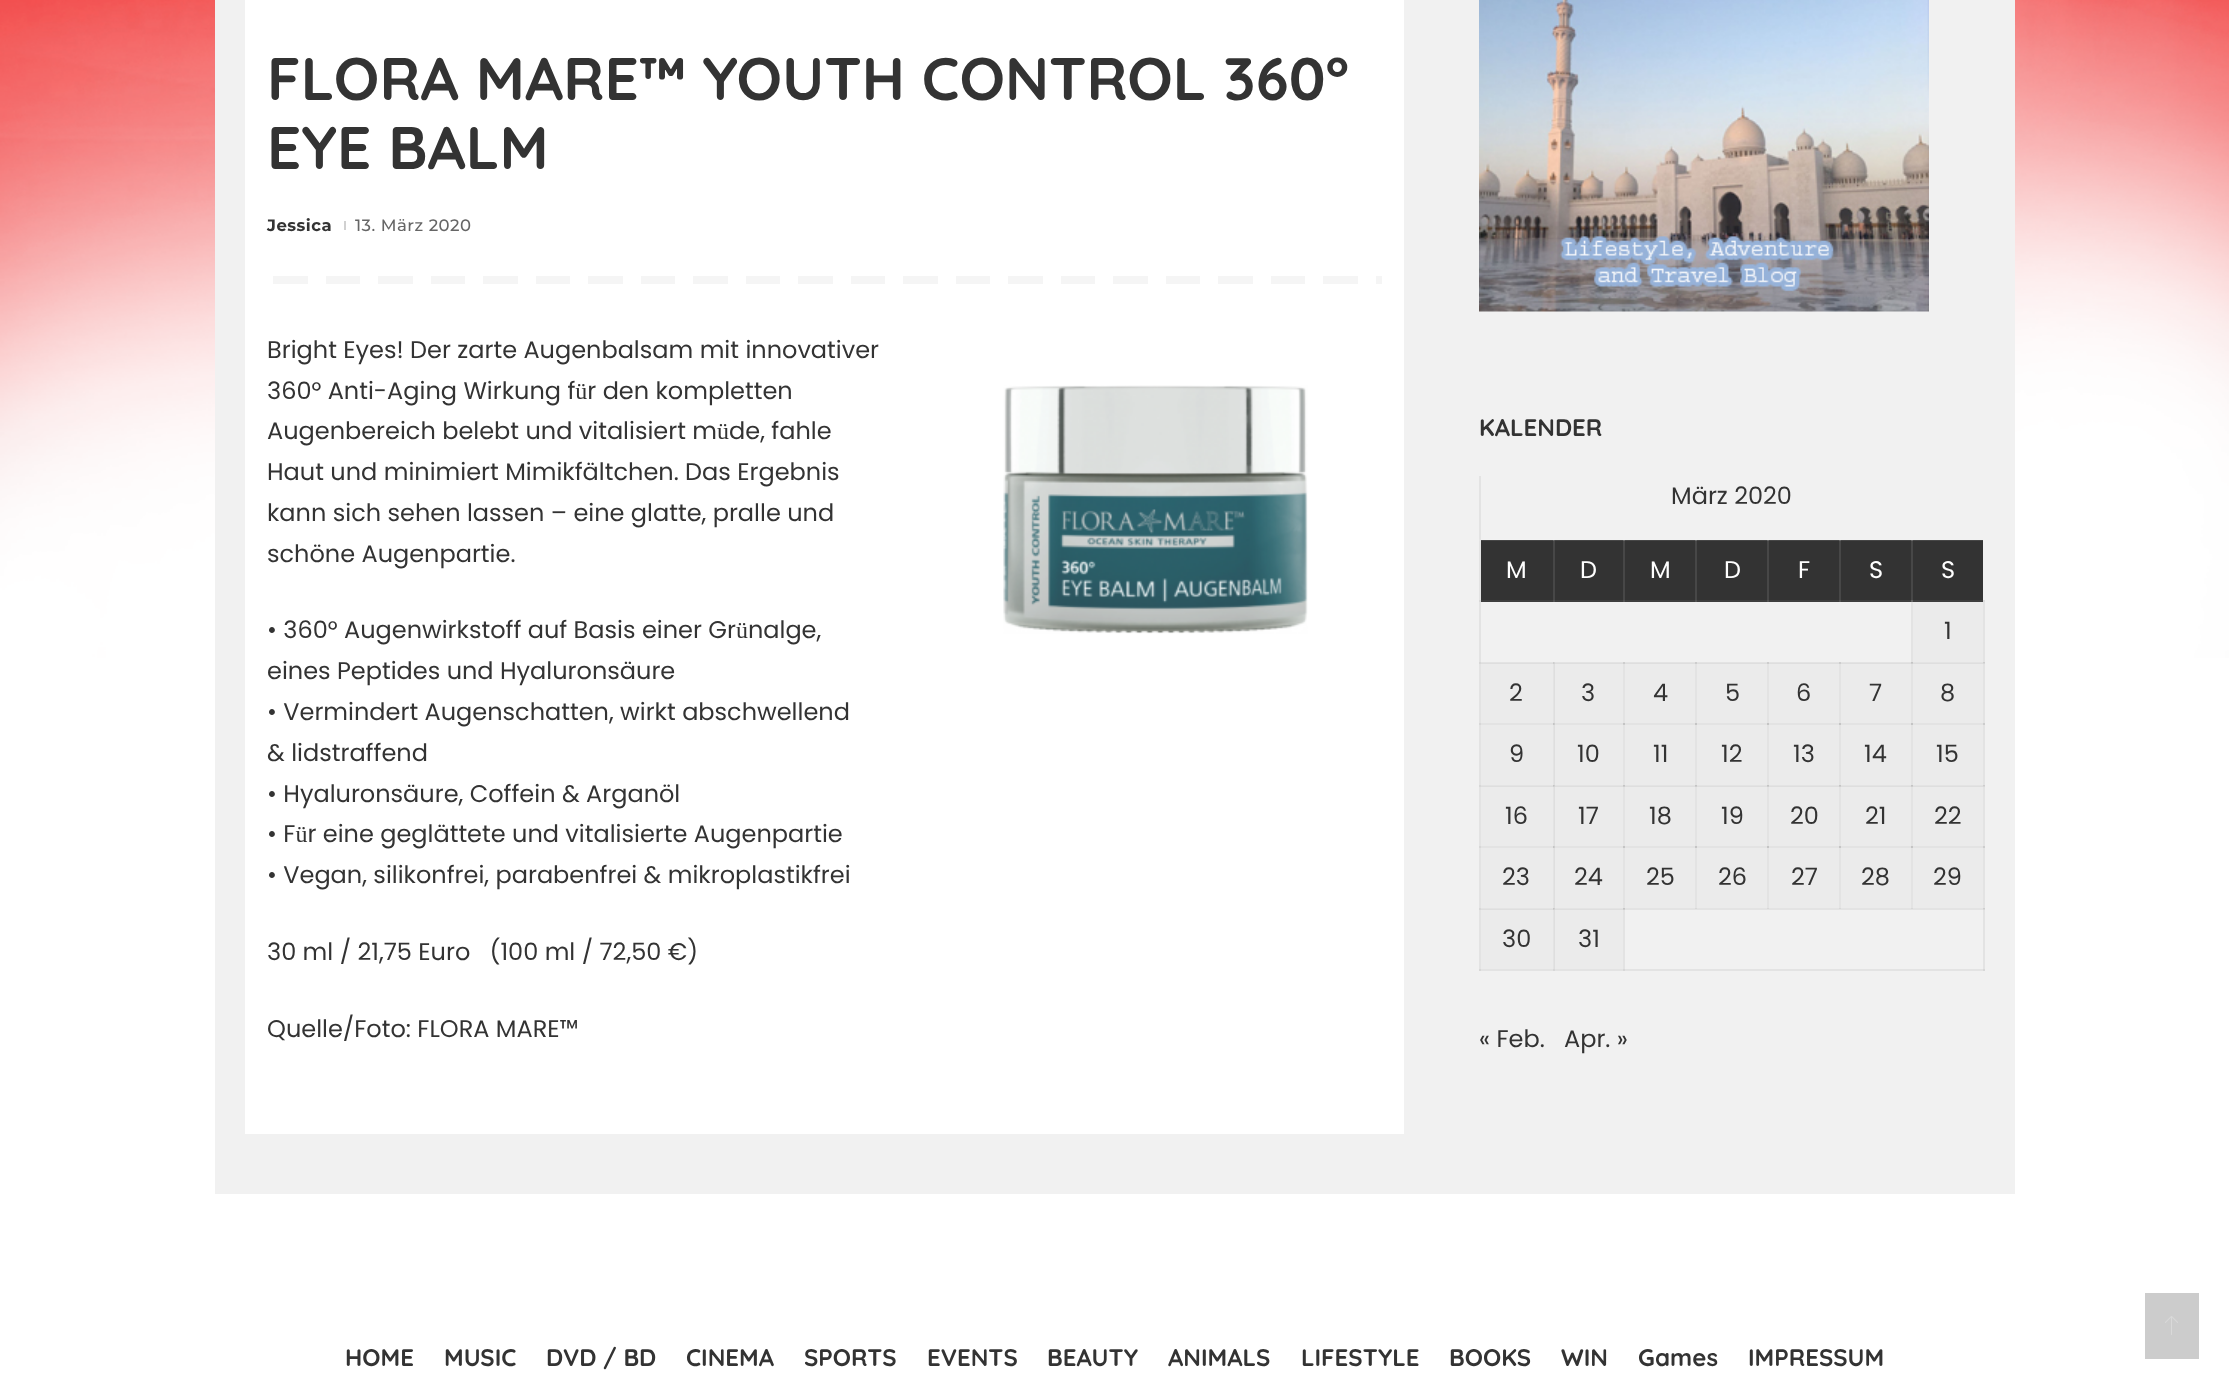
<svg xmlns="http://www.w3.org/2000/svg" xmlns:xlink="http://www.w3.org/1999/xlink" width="2229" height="1388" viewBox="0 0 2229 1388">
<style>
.cls-1{font:bold 60px Quicksand;fill:#333333}
.cls-2{font:bold 16.5px Montserrat;letter-spacing:0.5px;fill:#333333}
.cls-3{font:500 16.5px Montserrat;letter-spacing:0.5px;fill:#666666}
.cls-4{font:24px Poppins;fill:#333333}
.cls-5{font:bold 24px Quicksand;fill:#333333}
.cls-6{font:24px Poppins;fill:#ffffff}
</style>
<rect width="100%" height="100%" fill="#ffffff"/>
<image xlink:href="image0.png" x="0" y="0" width="2229" height="658"/>
<rect fill="#f1f1f1" x="215" y="0" width="1800" height="1194"/>
<rect fill="#e3e3e3" x="1623" y="662" width="2" height="309"/>
<rect fill="#e3e3e3" x="1553" y="662" width="72" height="2"/>
<rect fill="#e3e3e3" x="1695" y="662" width="2" height="247"/>
<rect fill="#e3e3e3" x="1623" y="662" width="74" height="1"/>
<rect fill="#cdcdcd" x="1623" y="662" width="2" height="2"/>
<rect fill="#e3e3e3" x="1767" y="662" width="2" height="247"/>
<rect fill="#e3e3e3" x="1695" y="662" width="74" height="1"/>
<rect fill="#cdcdcd" x="1695" y="662" width="2" height="2"/>
<rect fill="#e3e3e3" x="1839" y="662" width="2" height="247"/>
<rect fill="#e3e3e3" x="1767" y="662" width="74" height="1"/>
<rect fill="#cdcdcd" x="1767" y="662" width="2" height="2"/>
<rect fill="#e3e3e3" x="1911" y="662" width="2" height="247"/>
<rect fill="#e3e3e3" x="1839" y="662" width="74" height="1"/>
<rect fill="#cdcdcd" x="1839" y="662" width="2" height="2"/>
<rect fill="#e3e3e3" x="1983" y="662" width="2" height="309"/>
<rect fill="#e3e3e3" x="1911" y="662" width="74" height="1"/>
<rect fill="#cdcdcd" x="1911" y="662" width="2" height="2"/>
<rect fill="#d7d7d7" x="1983" y="662" width="2" height="2"/>
<rect fill="#e3e3e3" x="1553" y="723" width="432" height="2"/>
<rect fill="#c4c4c4" x="1623" y="723" width="2" height="2"/>
<rect fill="#c4c4c4" x="1695" y="723" width="2" height="2"/>
<rect fill="#c4c4c4" x="1767" y="723" width="2" height="2"/>
<rect fill="#c4c4c4" x="1839" y="723" width="2" height="2"/>
<rect fill="#e3e3e3" x="1553" y="785" width="72" height="2"/>
<rect fill="#e3e3e3" x="1623" y="785" width="362" height="1"/>
<rect fill="#cdcdcd" x="1623" y="786" width="2" height="1"/>
<rect fill="#c4c4c4" x="1623" y="785" width="2" height="1"/>
<rect fill="#cdcdcd" x="1695" y="786" width="2" height="1"/>
<rect fill="#c4c4c4" x="1695" y="785" width="2" height="1"/>
<rect fill="#cdcdcd" x="1767" y="786" width="2" height="1"/>
<rect fill="#c4c4c4" x="1767" y="785" width="2" height="1"/>
<rect fill="#cdcdcd" x="1839" y="786" width="2" height="1"/>
<rect fill="#c4c4c4" x="1839" y="785" width="2" height="1"/>
<rect fill="#cdcdcd" x="1911" y="786" width="2" height="1"/>
<rect fill="#c4c4c4" x="1911" y="785" width="2" height="1"/>
<rect fill="#d7d7d7" x="1983" y="786" width="2" height="1"/>
<rect fill="#cdcdcd" x="1983" y="785" width="2" height="1"/>
<rect fill="#e3e3e3" x="1553" y="846" width="432" height="2"/>
<rect fill="#c4c4c4" x="1623" y="846" width="2" height="2"/>
<rect fill="#c4c4c4" x="1695" y="846" width="2" height="2"/>
<rect fill="#c4c4c4" x="1767" y="846" width="2" height="2"/>
<rect fill="#c4c4c4" x="1839" y="846" width="2" height="2"/>
<rect fill="#e3e3e3" x="1553" y="908" width="432" height="2"/>
<rect fill="#ffffff" x="245" y="0" width="1159" height="1134"/>
<image xlink:href="image1.png" x="273" y="276" width="1109" height="8"/>
<rect fill="#d1d1d1" x="344" y="221" width="2" height="9"/>
<image xlink:href="image2.png" x="1003" y="385" width="305" height="249"/>
<image xlink:href="image3.png" x="1479" y="0" width="450" height="312"/>
<rect fill="#e3e3e3" x="1479" y="969" width="506" height="2"/>
<rect fill="#d7d7d7" x="1623" y="969" width="2" height="2"/>
<rect fill="#d7d7d7" x="1983" y="969" width="2" height="2"/>
<rect fill="#888888" fill-opacity="0.13" x="1479" y="476" width="2" height="495"/>
<rect fill="#333333" x="1481" y="540" width="502" height="62"/>
<rect fill="#ffffff" fill-opacity="0.1" x="1911" y="540" width="74" height="1"/>
<rect fill="#ffffff" fill-opacity="0.1" x="1839" y="540" width="74" height="1"/>
<rect fill="#ffffff" fill-opacity="0.1" x="1767" y="540" width="74" height="1"/>
<rect fill="#ffffff" fill-opacity="0.1" x="1695" y="540" width="74" height="1"/>
<rect fill="#ffffff" fill-opacity="0.1" x="1623" y="540" width="74" height="1"/>
<rect fill="#ffffff" fill-opacity="0.1" x="1553" y="540" width="72" height="1"/>
<rect fill="#ffffff" fill-opacity="0.1" x="1479" y="539" width="75" height="2"/>
<rect fill="#888888" fill-opacity="0.13" x="1911" y="600" width="74" height="2"/>
<rect fill="#888888" fill-opacity="0.13" x="1479" y="600" width="434" height="2"/>
<rect fill="#ffffff" fill-opacity="0.1" x="1553" y="539" width="2" height="63"/>
<rect fill="#ffffff" fill-opacity="0.1" x="1623" y="539" width="2" height="63"/>
<rect fill="#ffffff" fill-opacity="0.1" x="1695" y="539" width="2" height="63"/>
<rect fill="#ffffff" fill-opacity="0.1" x="1767" y="539" width="2" height="63"/>
<rect fill="#ffffff" fill-opacity="0.1" x="1839" y="539" width="2" height="63"/>
<rect fill="#888888" fill-opacity="0.13" x="1911" y="600" width="2" height="63"/>
<rect fill="#ffffff" fill-opacity="0.1" x="1911" y="539" width="2" height="63"/>
<rect fill="#888888" fill-opacity="0.13" x="1983" y="600" width="2" height="63"/>
<rect fill="#ffffff" fill-opacity="0.1" x="1983" y="600" width="2" height="2"/>
<rect fill="#ebebeb" x="1913" y="602" width="70" height="60"/>
<rect fill="#ebebeb" x="1481" y="663" width="72" height="60"/>
<rect fill="#888888" fill-opacity="0.13" x="1479" y="662" width="75" height="2"/>
<rect fill="#ebebeb" x="1554" y="664" width="69" height="59"/>
<rect fill="#dedede" x="1554" y="663" width="69" height="1"/>
<rect fill="#888888" fill-opacity="0.13" x="1479" y="723" width="75" height="2"/>
<rect fill="#ebebeb" x="1554" y="725" width="69" height="60"/>
<rect fill="#ebebeb" x="1481" y="786" width="72" height="60"/>
<rect fill="#888888" fill-opacity="0.13" x="1479" y="785" width="75" height="2"/>
<rect fill="#ebebeb" x="1554" y="787" width="69" height="59"/>
<rect fill="#dedede" x="1554" y="786" width="69" height="1"/>
<rect fill="#888888" fill-opacity="0.13" x="1479" y="846" width="75" height="2"/>
<rect fill="#ebebeb" x="1554" y="848" width="69" height="60"/>
<rect fill="#ebebeb" x="1481" y="909" width="72" height="60"/>
<rect fill="#888888" fill-opacity="0.13" x="1479" y="908" width="75" height="2"/>
<rect fill="#ebebeb" x="1554" y="910" width="69" height="59"/>
<rect fill="#dedede" x="1554" y="909" width="69" height="1"/>
<rect fill="#888888" fill-opacity="0.13" x="1553" y="908" width="2" height="63"/>
<rect fill="#888888" fill-opacity="0.13" x="1553" y="846" width="2" height="63"/>
<rect fill="#888888" fill-opacity="0.13" x="1553" y="785" width="2" height="63"/>
<rect fill="#888888" fill-opacity="0.13" x="1553" y="723" width="2" height="63"/>
<rect fill="#888888" fill-opacity="0.13" x="1553" y="662" width="2" height="63"/>
<rect fill="#ebebeb" x="1625" y="664" width="70" height="59"/>
<rect fill="#dedede" x="1625" y="663" width="70" height="1"/>
<rect fill="#ebebeb" x="1697" y="664" width="70" height="59"/>
<rect fill="#dedede" x="1697" y="663" width="70" height="1"/>
<rect fill="#ebebeb" x="1769" y="664" width="70" height="59"/>
<rect fill="#dedede" x="1769" y="663" width="70" height="1"/>
<rect fill="#ebebeb" x="1841" y="664" width="70" height="59"/>
<rect fill="#dedede" x="1841" y="663" width="70" height="1"/>
<rect fill="#ebebeb" x="1913" y="664" width="70" height="59"/>
<rect fill="#dedede" x="1913" y="663" width="70" height="1"/>
<rect fill="#ebebeb" x="1481" y="725" width="72" height="60"/>
<rect fill="#ebebeb" x="1625" y="725" width="70" height="60"/>
<rect fill="#ebebeb" x="1697" y="725" width="70" height="60"/>
<rect fill="#ebebeb" x="1769" y="725" width="70" height="60"/>
<rect fill="#ebebeb" x="1841" y="725" width="70" height="60"/>
<rect fill="#c4c4c4" x="1911" y="723" width="2" height="2"/>
<rect fill="#cdcdcd" x="1983" y="723" width="2" height="2"/>
<rect fill="#ebebeb" x="1913" y="725" width="70" height="60"/>
<rect fill="#ebebeb" x="1625" y="787" width="70" height="59"/>
<rect fill="#dedede" x="1625" y="786" width="70" height="1"/>
<rect fill="#ebebeb" x="1697" y="787" width="70" height="59"/>
<rect fill="#dedede" x="1697" y="786" width="70" height="1"/>
<rect fill="#ebebeb" x="1769" y="787" width="70" height="59"/>
<rect fill="#dedede" x="1769" y="786" width="70" height="1"/>
<rect fill="#ebebeb" x="1841" y="787" width="70" height="59"/>
<rect fill="#dedede" x="1841" y="786" width="70" height="1"/>
<rect fill="#ebebeb" x="1913" y="787" width="70" height="59"/>
<rect fill="#dedede" x="1913" y="786" width="70" height="1"/>
<rect fill="#ebebeb" x="1481" y="848" width="72" height="60"/>
<rect fill="#ebebeb" x="1625" y="848" width="70" height="60"/>
<rect fill="#ebebeb" x="1697" y="848" width="70" height="60"/>
<rect fill="#ebebeb" x="1769" y="848" width="70" height="60"/>
<rect fill="#ebebeb" x="1841" y="848" width="70" height="60"/>
<rect fill="#c4c4c4" x="1911" y="846" width="2" height="2"/>
<rect fill="#cdcdcd" x="1983" y="846" width="2" height="2"/>
<rect fill="#ebebeb" x="1913" y="848" width="70" height="60"/>
<rect fill="#d7d7d7" x="1695" y="908" width="2" height="1"/>
<rect fill="#d7d7d7" x="1767" y="908" width="2" height="1"/>
<rect fill="#d7d7d7" x="1839" y="908" width="2" height="1"/>
<rect fill="#d7d7d7" x="1911" y="908" width="2" height="1"/>
<rect fill="#cdcdcd" x="1623" y="909" width="2" height="1"/>
<rect fill="#c4c4c4" x="1623" y="908" width="2" height="1"/>
<rect fill="#d7d7d7" x="1983" y="909" width="2" height="1"/>
<rect fill="#cdcdcd" x="1983" y="908" width="2" height="1"/>
<rect fill="#cccccc" x="2145" y="1293" width="54" height="66"/>
<image xlink:href="image4.png" x="2165" y="1316" width="13" height="19"/>
<text class="cls-1"><tspan x="267" y="100">FLORA MARE™ YOUTH CONTROL 360°</tspan><tspan x="267" y="169">EYE BALM</tspan></text>
<text class="cls-2" x="267" y="231">Jessica</text>
<text class="cls-3" x="355" y="231">13. März 2020</text>
<text class="cls-4"><tspan x="267" y="358">Bright Eyes! Der zarte Augenbalsam mit innovativer</tspan><tspan x="267" y="399">360° Anti-Aging Wirkung für den kompletten</tspan><tspan x="267" y="439">Augenbereich belebt und vitalisiert müde, fahle</tspan><tspan x="267" y="480">Haut und minimiert Mimikfältchen. Das Ergebnis</tspan><tspan x="267" y="521">kann sich sehen lassen – eine glatte, pralle und</tspan><tspan x="267" y="562">schöne Augenpartie.</tspan></text>
<text class="cls-4"><tspan x="267" y="638">• 360° Augenwirkstoff auf Basis einer Grünalge,</tspan><tspan x="267" y="679">eines Peptides und Hyaluronsäure</tspan><tspan x="267" y="720">• Vermindert Augenschatten, wirkt abschwellend</tspan><tspan x="267" y="761">&amp; lidstraffend</tspan><tspan x="267" y="802">• Hyaluronsäure, Coffein &amp; Arganöl</tspan><tspan x="267" y="842">• Für eine geglättete und vitalisierte Augenpartie</tspan><tspan x="267" y="883">• Vegan, silikonfrei, parabenfrei &amp; mikroplastikfrei</tspan></text>
<text class="cls-4" xml:space="preserve" x="267" y="960">30 ml / 21,75 Euro   (100 ml / 72,50 €)</text>
<text class="cls-4" x="267" y="1037">Quelle/Foto: FLORA MARE™</text>
<text class="cls-5" x="1479" y="436">KALENDER</text>
<text class="cls-4" x="1671" y="504">März 2020</text>
<text class="cls-6" x="1506" y="578">M</text>
<text class="cls-6" x="1580" y="578">D</text>
<text class="cls-6" x="1650" y="578">M</text>
<text class="cls-6" x="1724" y="578">D</text>
<text class="cls-6" x="1798" y="578">F</text>
<text class="cls-6" x="1869" y="578">S</text>
<text class="cls-6" x="1941" y="578">S</text>
<text class="cls-4" x="1944" y="639">1</text>
<text class="cls-4" x="1509" y="701">2</text>
<text class="cls-4" x="1581" y="701">3</text>
<text class="cls-4" x="1653" y="701">4</text>
<text class="cls-4" x="1725" y="701">5</text>
<text class="cls-4" x="1796" y="701">6</text>
<text class="cls-4" x="1869" y="701">7</text>
<text class="cls-4" x="1940" y="701">8</text>
<text class="cls-4" x="1509" y="762">9</text>
<text class="cls-4" x="1577" y="762">10</text>
<text class="cls-4" x="1653" y="762">11</text>
<text class="cls-4" x="1721" y="762">12</text>
<text class="cls-4" x="1793" y="762">13</text>
<text class="cls-4" x="1864" y="762">14</text>
<text class="cls-4" x="1936" y="762">15</text>
<text class="cls-4" x="1505" y="824">16</text>
<text class="cls-4" x="1578" y="824">17</text>
<text class="cls-4" x="1649" y="824">18</text>
<text class="cls-4" x="1721" y="824">19</text>
<text class="cls-4" x="1790" y="824">20</text>
<text class="cls-4" x="1865" y="824">21</text>
<text class="cls-4" x="1934" y="824">22</text>
<text class="cls-4" x="1502" y="885">23</text>
<text class="cls-4" x="1574" y="885">24</text>
<text class="cls-4" x="1646" y="885">25</text>
<text class="cls-4" x="1718" y="885">26</text>
<text class="cls-4" x="1791" y="885">27</text>
<text class="cls-4" x="1861" y="885">28</text>
<text class="cls-4" x="1933" y="885">29</text>
<text class="cls-4" x="1502" y="947">30</text>
<text class="cls-4" x="1578" y="947">31</text>
<text class="cls-4" x="1479" y="1047">« Feb.</text>
<text class="cls-4" x="1564" y="1047">Apr. »</text>
<text class="cls-5" x="345" y="1366">HOME</text>
<text class="cls-5" x="444" y="1366">MUSIC</text>
<text class="cls-5" x="546" y="1366">DVD / BD</text>
<text class="cls-5" x="686" y="1366">CINEMA</text>
<text class="cls-5" x="804" y="1366">SPORTS</text>
<text class="cls-5" x="927" y="1366">EVENTS</text>
<text class="cls-5" x="1047" y="1366">BEAUTY</text>
<text class="cls-5" x="1168" y="1366">ANIMALS</text>
<text class="cls-5" x="1301" y="1366">LIFESTYLE</text>
<text class="cls-5" x="1449" y="1366">BOOKS</text>
<text class="cls-5" x="1561" y="1366">WIN</text>
<text class="cls-5" x="1638" y="1366">Games</text>
<text class="cls-5" x="1748" y="1366">IMPRESSUM</text>
</svg>
